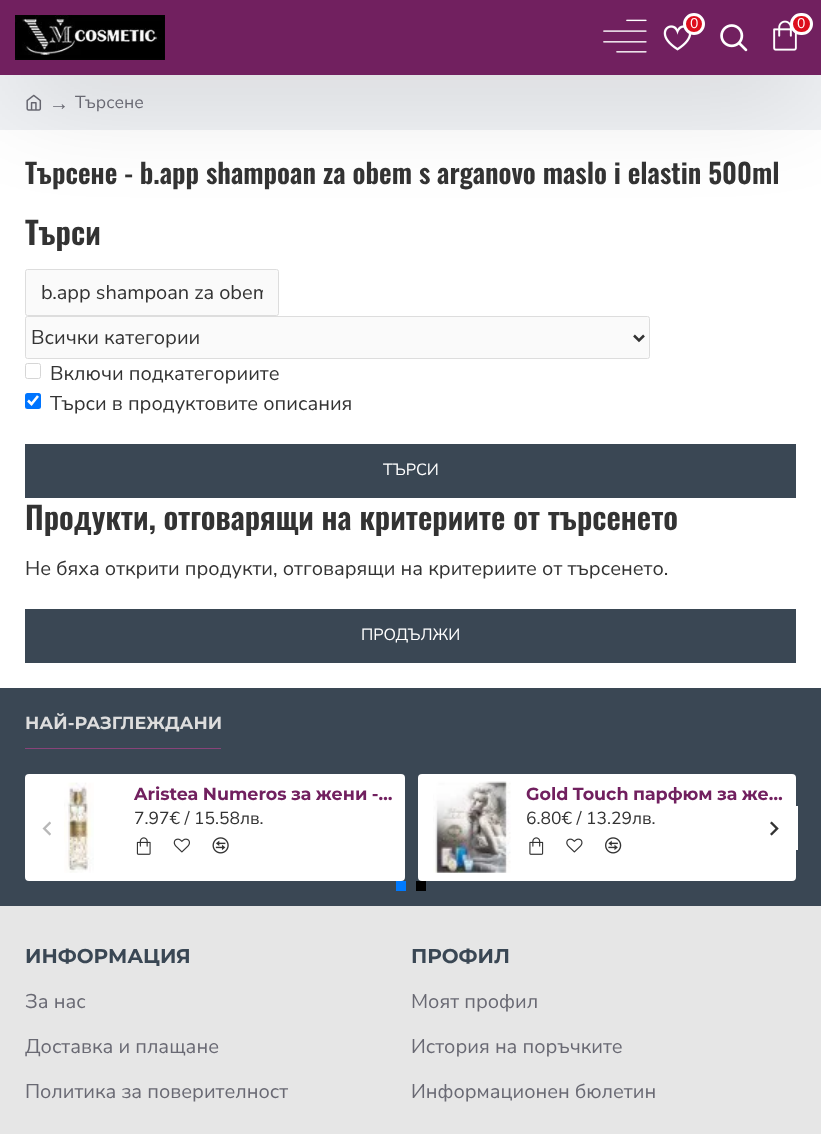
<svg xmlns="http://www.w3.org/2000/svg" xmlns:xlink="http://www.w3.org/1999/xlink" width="821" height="1134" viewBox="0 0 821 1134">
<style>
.cls-1{font:14px Nunito Sans;fill:#ffffff}
.cls-2{font:20px Liberation Serif;fill:#696973}
.cls-3{font:17.5px Nunito Sans;fill:#696973}
.cls-4{font:600 27.5px Oswald;fill:#333333}
.cls-5{font:600 31.25px Oswald;fill:#333333}
.cls-6{font:20px Nunito Sans;fill:#333333}
.cls-7{font:16.25px Nunito Sans;fill:#ffffff}
.cls-8{font:bold 17.5px Montserrat;fill:#dddddd}
.cls-9{font:bold 17.5px Montserrat;fill:#71205f}
.cls-10{font:17.5px Nunito Sans;fill:#333333}
.cls-11{font:bold 20px Montserrat;fill:#3a4754}
.cls-12{font:20px Nunito Sans;fill:#696973}
</style>
<defs>
<clipPath id="clip1"><rect x="41" y="279" width="222" height="27"/></clipPath>
</defs>
<rect width="100%" height="100%" fill="#ffffff"/>
<rect fill="#f0f2f5" x="0" y="75" width="821" height="55"/>
<image xlink:href="image5.png" x="26" y="94" width="16" height="17"/>
<rect fill="#000000" fill-opacity="0.2" filter="blur(56px)" x="13" y="31" width="796" height="50"/>
<rect fill="#71205f" x="0" y="0" width="821" height="75"/>
<image xlink:href="image0.png" x="15" y="15" width="150" height="45"/>
<image xlink:href="image1.png" x="603" y="19" width="44" height="34"/>
<image xlink:href="image2.png" x="663" y="25" width="29" height="26"/>
<circle fill="#dd0e1c" stroke="#ffffff" stroke-width="3" cx="694" cy="24" r="9.5"/>
<image xlink:href="image3.png" x="720" y="24" width="28" height="28"/>
<image xlink:href="image4.png" x="773" y="20" width="24" height="31"/>
<rect fill="#dd0e1c" stroke="#ffffff" stroke-width="3" x="791.5" y="14.5" width="20" height="19" rx="9.5"/>
<rect fill="#fafafa" stroke="#dddddd" x="25.5" y="269.5" width="253" height="46" rx="2"/>
<rect fill="#fafafa" stroke="#dddddd" x="25.5" y="316.5" width="624" height="42" rx="2"/>
<path fill="none" stroke="#333333" stroke-width="2.5" d="M634 335.5L639 340.5L644 335.5"/>
<rect fill="none" stroke="#d6d6d6" x="25.5" y="363.5" width="15" height="15" rx="2"/>
<rect fill="#0075ff" x="25" y="393" width="16" height="16" rx="2.5"/>
<path fill="none" stroke="#ffffff" stroke-width="2.6" d="M28 400.5L31.5 404L38 396"/>
<rect fill="#3a4754" x="25" y="444" width="771" height="54"/>
<rect fill="#3a4754" x="25" y="609" width="771" height="54"/>
<rect fill="#e6e6e6" x="0" y="906" width="821" height="228"/>
<rect fill="#3a4754" x="0" y="688" width="821" height="218"/>
<rect fill="#884379" x="25" y="748" width="196" height="1"/>
<rect fill="#ffffff" x="25" y="774" width="380" height="107" rx="4"/>
<image xlink:href="image6.png" x="64" y="782" width="30" height="91"/>
<image xlink:href="image7.png" x="136" y="837" width="15" height="18"/>
<image xlink:href="image8.png" x="173" y="838" width="17" height="15"/>
<image xlink:href="image9.png" x="212" y="837" width="17" height="17"/>
<rect fill="#ffffff" x="418" y="774" width="378" height="107" rx="4"/>
<image xlink:href="image10.png" x="433" y="781" width="78" height="92"/>
<image xlink:href="image11.png" x="529" y="837" width="15" height="18"/>
<image xlink:href="image12.png" x="566" y="838" width="17" height="15"/>
<image xlink:href="image13.png" x="605" y="837" width="17" height="17"/>
<rect fill="#ffffff" fill-opacity="0.35" x="64" y="806" width="6" height="44"/>
<image xlink:href="image14.png" x="42" y="821" width="9" height="15"/>
<rect fill="#ffffff" x="796" y="806" width="2" height="44"/>
<image xlink:href="image15.png" x="770" y="821" width="9" height="15"/>
<rect fill="#007aff" x="396" y="881" width="10" height="10"/>
<rect fill="#000000" x="416" y="881" width="10" height="10"/>
<text class="cls-1" x="690" y="28">0</text>
<text class="cls-1" x="797" y="28">0</text>
<text class="cls-2" x="49" y="110">→</text>
<text class="cls-3" x="75" y="108">Търсене</text>
<text class="cls-4" x="25" y="184">Търсене - b.app shampoan za obem s arganovo maslo i elastin 500ml</text>
<text class="cls-5" x="25" y="245">Търси</text>
<g clip-path="url(#clip1)">
<text class="cls-6" x="41" y="299">b.app shampoan za obem</text>
</g>
<text class="cls-6" x="31" y="344">Всички категории</text>
<text class="cls-6"><tspan x="50" y="380">Включи подкатегориите</tspan><tspan x="50" y="410">Търси в продуктовите описания</tspan></text>
<text class="cls-7" x="383" y="475">ТЪРСИ</text>
<text class="cls-5" x="25" y="530">Продукти, отговарящи на критериите от търсенето</text>
<text class="cls-6" x="25" y="575">Не бяха открити продукти, отговарящи на критериите от търсенето.</text>
<text class="cls-7" x="361" y="640">ПРОДЪЛЖИ</text>
<text class="cls-8" x="25" y="729">НАЙ-РАЗГЛЕЖДАНИ</text>
<text class="cls-9" x="134" y="800" word-spacing="-0.5">Aristea Numeros за жени -…</text>
<text class="cls-10" x="134" y="824">7.97€ / 15.58лв.</text>
<text class="cls-9" x="526" y="800" word-spacing="-0.5">Gold Touch парфюм за же…</text>
<text class="cls-10" x="526" y="824">6.80€ / 13.29лв.</text>
<text class="cls-11" x="25" y="963">ИНФОРМАЦИЯ</text>
<text class="cls-12" x="25" y="1008">За нас</text>
<text class="cls-12" x="25" y="1053">Доставка и плащане</text>
<text class="cls-12" x="25" y="1098">Политика за поверителност</text>
<text class="cls-11" x="411" y="963">ПРОФИЛ</text>
<text class="cls-12" x="411" y="1008">Моят профил</text>
<text class="cls-12" x="411" y="1053">История на поръчките</text>
<text class="cls-12" x="411" y="1098">Информационен бюлетин</text>
</svg>
